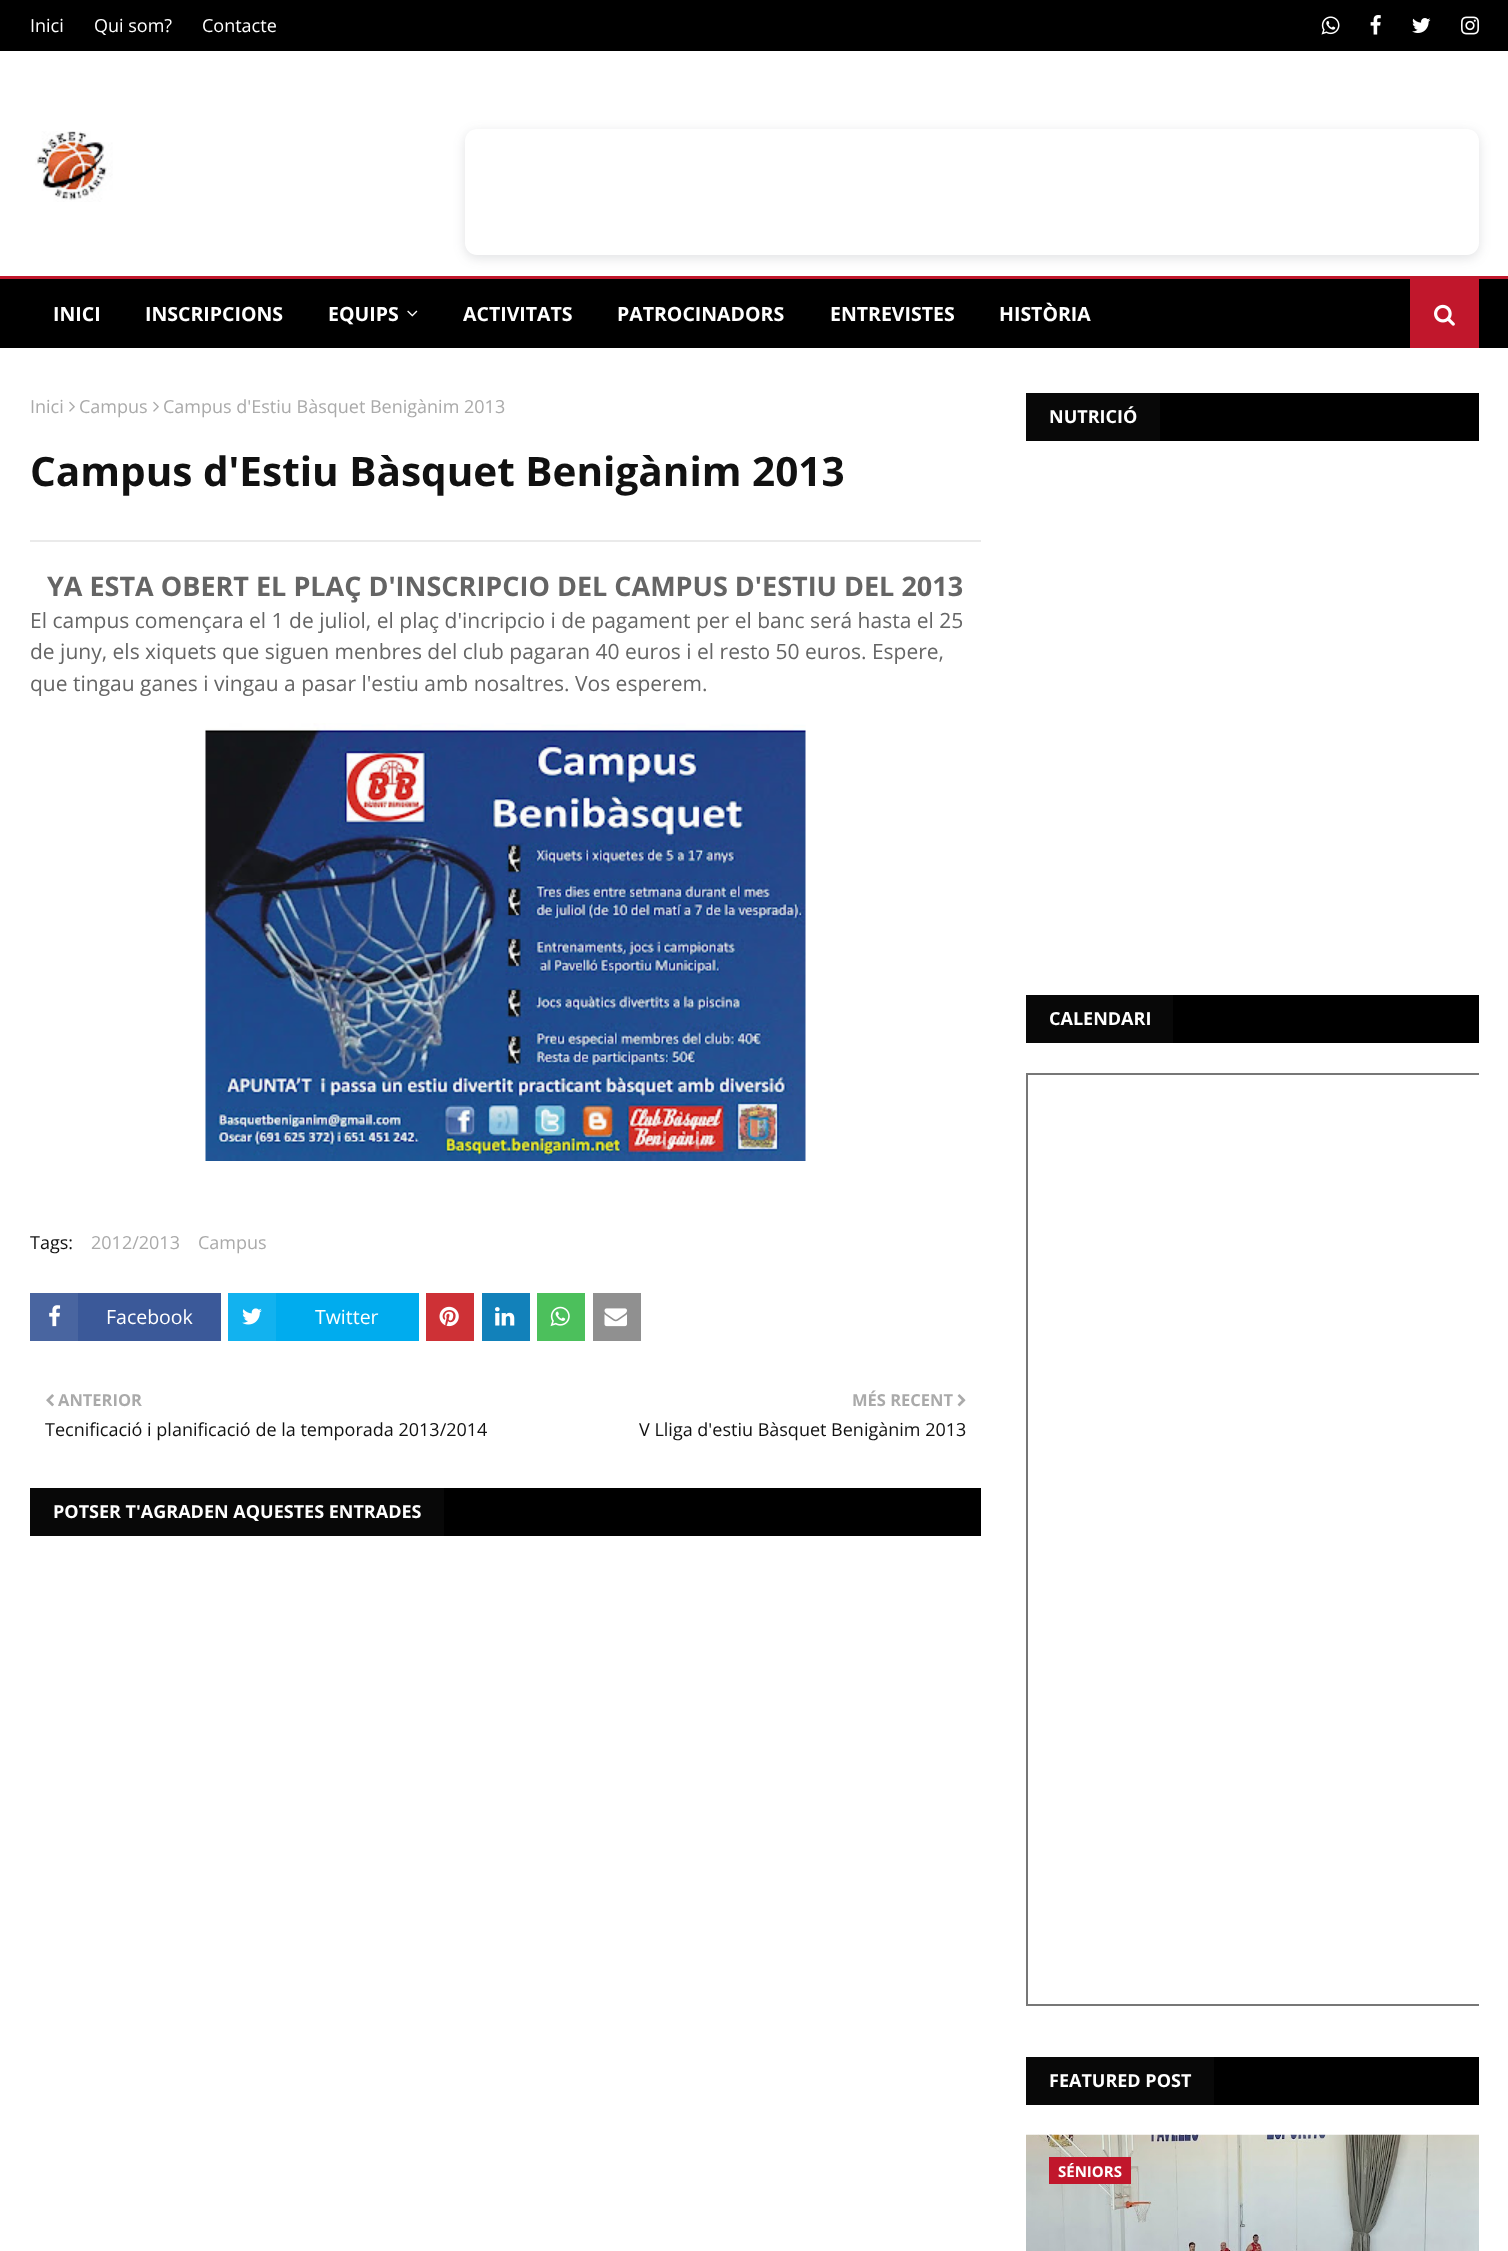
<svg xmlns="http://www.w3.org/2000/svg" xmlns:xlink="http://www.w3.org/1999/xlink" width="1508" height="2251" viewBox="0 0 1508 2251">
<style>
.cls-1{font:18px Open Sans;fill:#ffffff}
.cls-2{font:bold 19.5px Open Sans;fill:#ffffff}
.cls-3{font:18px Open Sans;fill:#aaaaaa}
.cls-4{font:bold 40.5px Open Sans;fill:#111111}
.cls-5{font:bold 27px Open Sans;fill:#656565}
.cls-6{font:21px Open Sans;fill:#656565}
.cls-7{font:18px Open Sans;fill:#111111}
.cls-8{font:19.5px Open Sans;fill:#ffffff}
.cls-9{font:bold 16.5px Open Sans;fill:#aaaaaa}
.cls-10{font:bold 18px Open Sans;fill:#ffffff}
.cls-11{font:bold 15px Open Sans;fill:#ffffff}
</style>
<defs>
<clipPath id="clip1"><path d="M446 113H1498V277H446ZM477 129H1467C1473.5 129 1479 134.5 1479 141V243C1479 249.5 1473.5 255 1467 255H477C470.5 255 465 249.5 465 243V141C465 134.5 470.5 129 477 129Z" clip-rule="evenodd"/></clipPath>
<clipPath id="clip2"><rect x="1026" y="995" width="453" height="1017"/></clipPath>
</defs>
<rect width="100%" height="100%" fill="#ffffff"/>
<rect fill="#000000" x="0" y="0" width="1508" height="51"/>
<image xlink:href="image0.png" x="1321" y="16" width="19" height="19"/>
<image xlink:href="image1.png" x="1370" y="15" width="11" height="20"/>
<image xlink:href="image2.png" x="1412" y="18" width="19" height="15"/>
<image xlink:href="image3.png" x="1461" y="16" width="18" height="19"/>
<image xlink:href="image4.png" x="35" y="131" width="78" height="71"/>
<g clip-path="url(#clip1)">
<rect fill="#3f4551" fill-opacity="0.16" filter="blur(6px)" x="465" y="132" width="1014" height="126" rx="12"/>
</g>
<rect fill="#000000" x="0" y="279" width="1508" height="69"/>
<rect fill="#c1172c" x="0" y="276" width="1508" height="3"/>
<image xlink:href="image5.png" x="407" y="310" width="11" height="7"/>
<rect fill="#c1172c" x="1410" y="279" width="69" height="69"/>
<image xlink:href="image6.png" x="1434" y="304" width="21" height="22"/>
<image xlink:href="image7.png" x="69" y="401" width="6" height="11"/>
<image xlink:href="image7.png" x="153" y="401" width="6" height="11"/>
<rect fill="#eaeaea" x="30" y="540" width="951" height="2"/>
<image xlink:href="image8.png" x="205" y="723" width="601" height="438"/>
<rect fill="#3b5999" x="78" y="1293" width="143" height="48"/>
<rect fill="#4965a0" x="30" y="1293" width="48" height="48"/>
<image xlink:href="image9.png" x="49" y="1305" width="12" height="22"/>
<rect fill="#00acee" x="276" y="1293" width="143" height="48"/>
<rect fill="#12b2ef" x="228" y="1293" width="48" height="48"/>
<image xlink:href="image10.png" x="242" y="1308" width="20" height="17"/>
<rect fill="#ce3136" x="426" y="1293" width="48" height="48"/>
<image xlink:href="image11.png" x="439" y="1306" width="20" height="21"/>
<rect fill="#1281ba" x="482" y="1293" width="48" height="48"/>
<image xlink:href="image12.png" x="495" y="1307" width="20" height="19"/>
<rect fill="#4cc05c" x="537" y="1293" width="48" height="48"/>
<image xlink:href="image13.png" x="550" y="1306" width="20" height="21"/>
<rect fill="#909090" x="593" y="1293" width="48" height="48"/>
<image xlink:href="image14.png" x="604" y="1308" width="23" height="19"/>
<image xlink:href="image15.png" x="46" y="1394" width="8" height="13"/>
<image xlink:href="image16.png" x="957" y="1394" width="9" height="13"/>
<rect fill="#000000" x="444" y="1488" width="537" height="48"/>
<rect fill="#080808" x="30" y="1488" width="414" height="48"/>
<rect fill="#000000" x="1160" y="393" width="319" height="48"/>
<rect fill="#080808" x="1026" y="393" width="134" height="48"/>
<rect fill="#000000" x="1173" y="995" width="306" height="48"/>
<rect fill="#080808" x="1026" y="995" width="147" height="48"/>
<g clip-path="url(#clip2)">
<rect fill="none" stroke="#777777" stroke-width="2" x="1027" y="1074" width="454" height="931"/>
</g>
<rect fill="#000000" x="1214" y="2057" width="265" height="48"/>
<rect fill="#080808" x="1026" y="2057" width="188" height="48"/>
<image xlink:href="image17.png" x="1026" y="2134" width="453" height="117"/>
<rect fill="#c1172c" x="1049" y="2157" width="82" height="27"/>
<text class="cls-1" x="30" y="32">Inici</text>
<text class="cls-1" x="94" y="32">Qui som?</text>
<text class="cls-1" x="202" y="32">Contacte</text>
<text class="cls-2" x="53" y="321">INICI</text>
<text class="cls-2" x="145" y="321">INSCRIPCIONS</text>
<text class="cls-2" x="328" y="321">EQUIPS</text>
<text class="cls-2" x="463" y="321">ACTIVITATS</text>
<text class="cls-2" x="617" y="321">PATROCINADORS</text>
<text class="cls-2" x="830" y="321">ENTREVISTES</text>
<text class="cls-2" x="999" y="321">HISTÒRIA</text>
<text class="cls-3" x="30" y="413">Inici</text>
<text class="cls-3" x="79" y="413">Campus</text>
<text class="cls-3" x="163" y="413">Campus d'Estiu Bàsquet Benigànim 2013</text>
<text class="cls-4" x="30" y="486">Campus d'Estiu Bàsquet Benigànim 2013</text>
<text class="cls-5" x="47" y="596">YA ESTA OBERT EL PLAÇ D'INSCRIPCIO DEL CAMPUS D'ESTIU DEL 2013</text>
<text class="cls-6"><tspan x="30" y="628">El campus començara el 1 de juliol, el plaç d'incripcio i de pagament per el banc será hasta el 25</tspan><tspan x="30" y="659">de juny, els xiquets que siguen menbres del club pagaran 40 euros i el resto 50 euros. Espere,</tspan><tspan x="30" y="691">que tingau ganes i vingau a pasar l'estiu amb nosaltres. Vos esperem.</tspan></text>
<text class="cls-7" x="30" y="1249">Tags:</text>
<text class="cls-3" x="91" y="1249">2012/2013</text>
<text class="cls-3" x="198" y="1249">Campus</text>
<text class="cls-8" x="106" y="1324">Facebook</text>
<text class="cls-8" x="315" y="1324">Twitter</text>
<text class="cls-9" x="58" y="1406">ANTERIOR</text>
<text class="cls-7" x="45" y="1436">Tecnificació i planificació de la temporada 2013/2014</text>
<text class="cls-9" x="852" y="1406">MÉS RECENT</text>
<text class="cls-7" x="639" y="1436">V Lliga d'estiu Bàsquet Benigànim 2013</text>
<text class="cls-10" x="53" y="1518">POTSER T'AGRADEN AQUESTES ENTRADES</text>
<text class="cls-10" x="1049" y="423">NUTRICIÓ</text>
<text class="cls-10" x="1049" y="1025">CALENDARI</text>
<text class="cls-10" x="1049" y="2087">FEATURED POST</text>
<text class="cls-11" x="1058" y="2177">SÉNIORS</text>
</svg>
